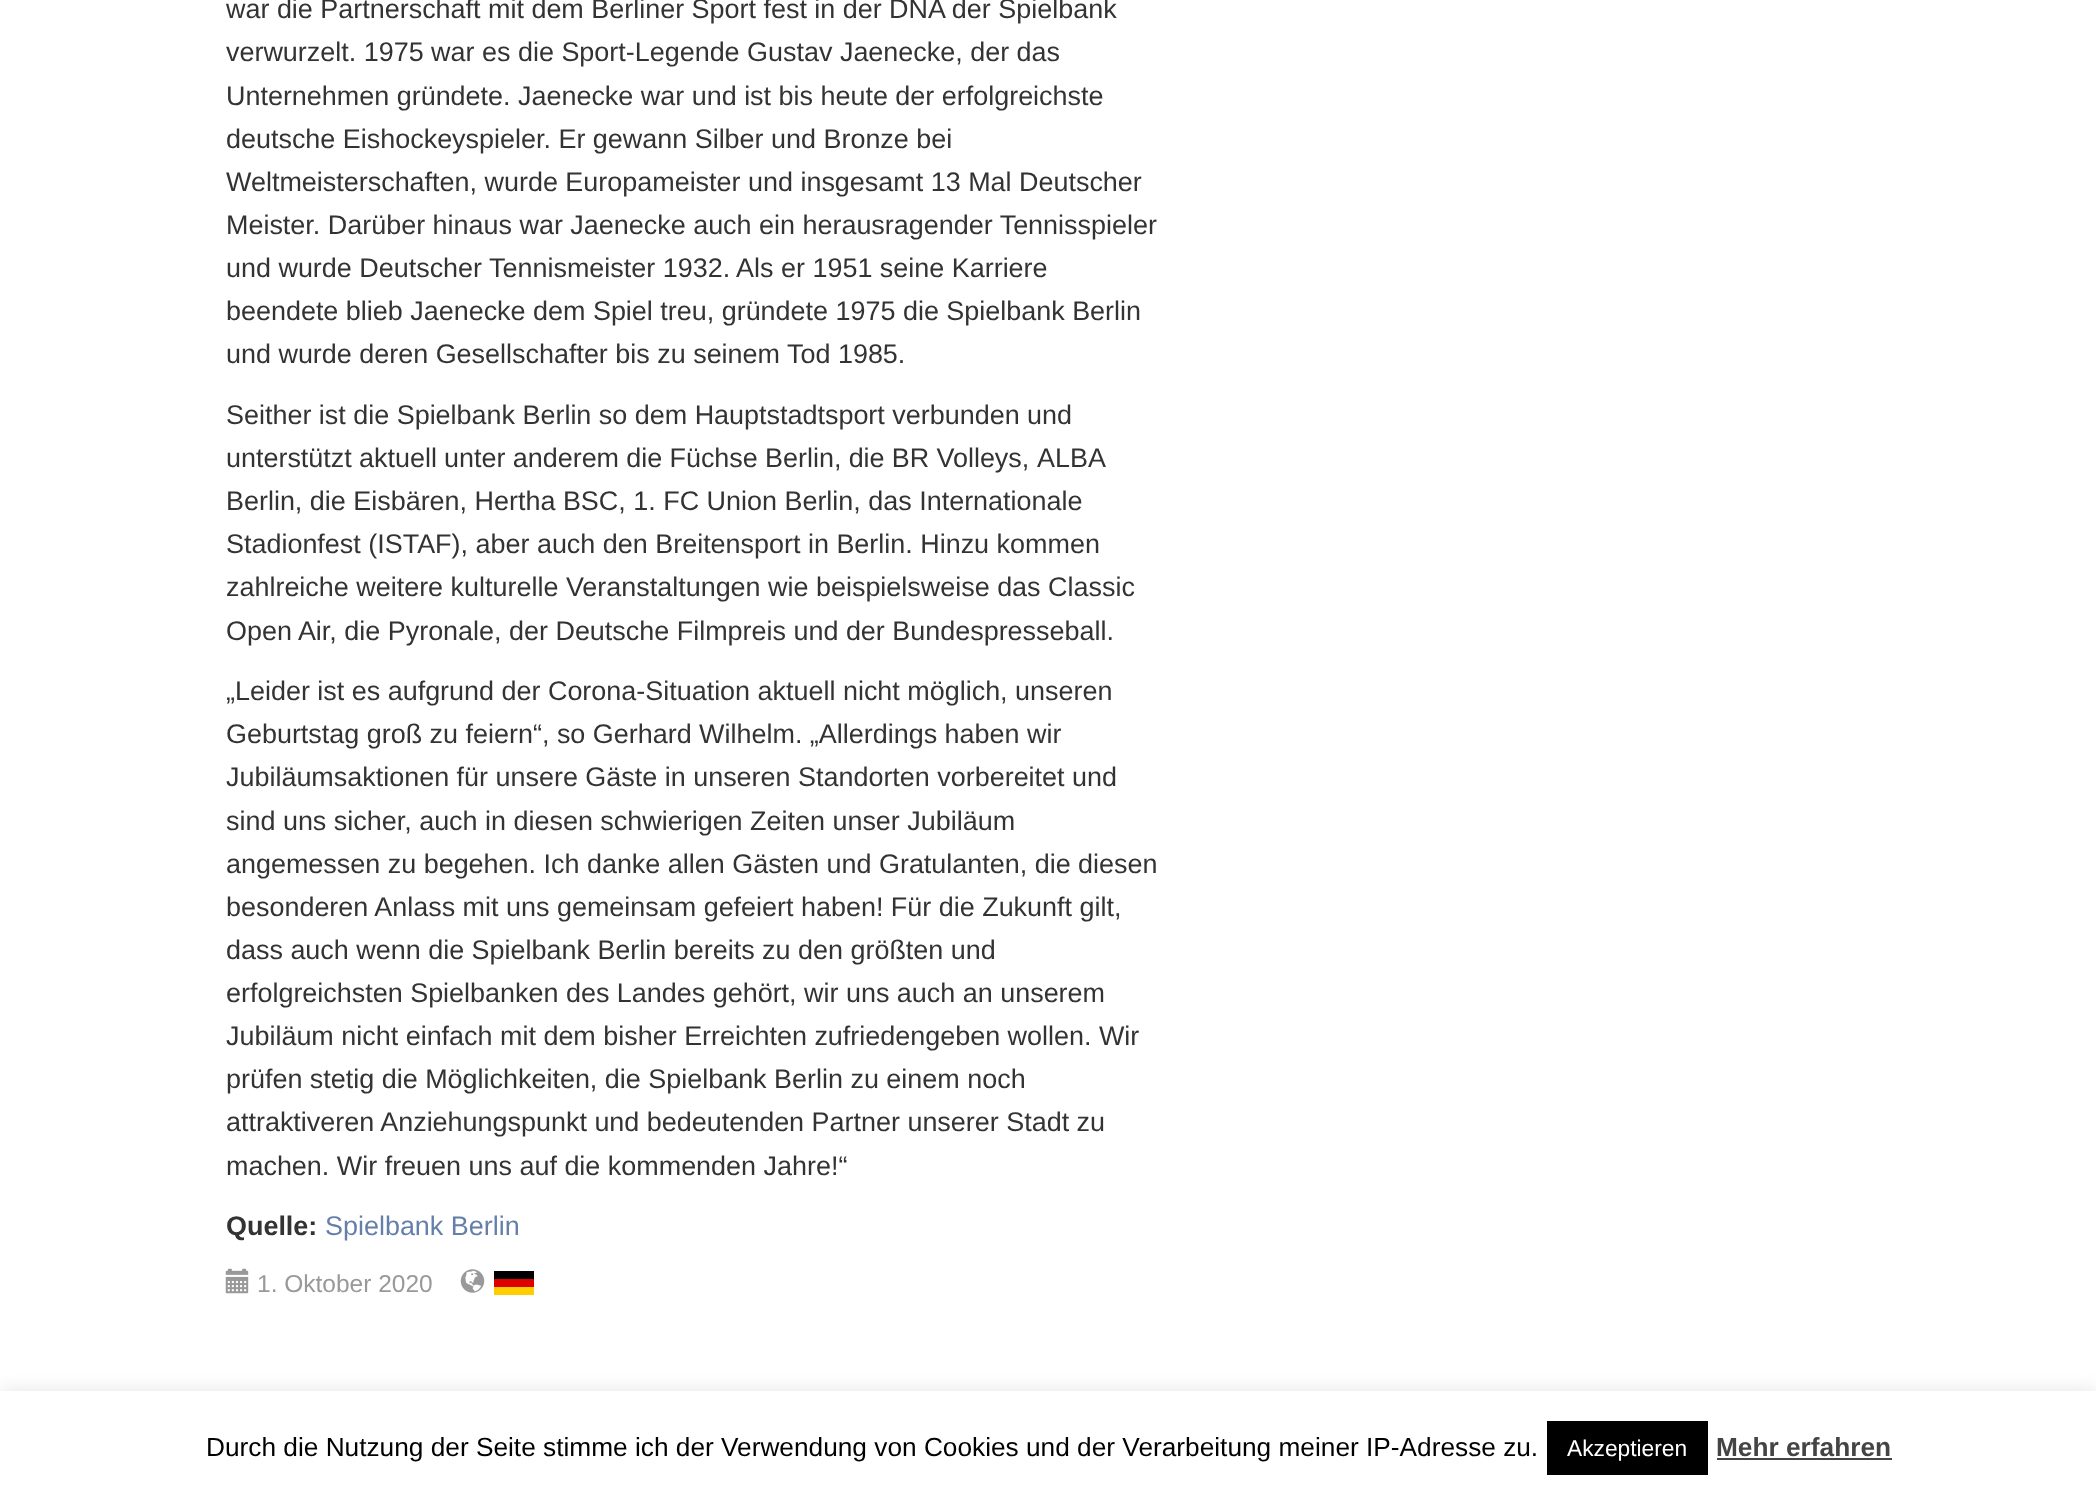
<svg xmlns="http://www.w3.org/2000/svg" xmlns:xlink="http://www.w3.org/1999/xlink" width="2096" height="1496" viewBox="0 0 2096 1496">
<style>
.cls-1{font:26.95px Liberation Sans;fill:#333333}
.cls-2{font:bold 26.95px Liberation Sans;fill:#333333}
.cls-3{font:26.95px Liberation Sans;fill:#657fab}
.cls-4{font:24.5px Liberation Sans;fill:#999999}
.cls-5{font:26.25px Liberation Sans;fill:#000000}
.cls-6{font:22.75px Liberation Sans;fill:#ffffff}
.cls-7{font:bold 26.25px Liberation Sans;fill:#444444}
</style>
<rect width="100%" height="100%" fill="#ffffff"/>
<image xlink:href="image0.png" x="225" y="1268" width="24" height="26"/>
<image xlink:href="image1.png" x="460" y="1269" width="25" height="24"/>
<rect fill="#000000" x="494" y="1271" width="40" height="8"/>
<rect fill="#dd0000" x="494" y="1279" width="40" height="8"/>
<rect fill="#ffce00" x="494" y="1287" width="40" height="8"/>
<rect fill="#acabab" fill-opacity="0.3" filter="blur(9px)" x="0" y="1390" width="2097" height="105"/>
<rect fill="#ffffff" x="0" y="1391" width="2096" height="105"/>
<rect fill="#000000" x="1547" y="1421" width="161" height="54"/>
<rect fill="#444444" x="1717" y="1458" width="175" height="2"/>
<text class="cls-1" x="226" y="18">war die Partnerschaft mit dem Berliner Sport fest in der</text>
<text class="cls-1" x="889" y="18">DNA der Spielbank</text>
<text class="cls-1"><tspan x="226" y="61">verwurzelt. 1975 war es die Sport-Legende Gustav Jaenecke, der das</tspan><tspan x="226" y="105">Unternehmen gründete. Jaenecke war und ist bis heute der erfolgreichste</tspan><tspan x="226" y="148">deutsche Eishockeyspieler. Er gewann Silber und Bronze bei</tspan><tspan x="226" y="191">Weltmeisterschaften, wurde Europameister und insgesamt 13 Mal Deutscher</tspan><tspan x="226" y="234">Meister. Darüber hinaus war Jaenecke auch ein herausragender Tennisspieler</tspan><tspan x="226" y="277">und wurde Deutscher Tennismeister 1932. Als er 1951 seine Karriere</tspan><tspan x="226" y="320">beendete blieb Jaenecke dem Spiel treu, gründete 1975 die Spielbank Berlin</tspan><tspan x="226" y="363">und wurde deren Gesellschafter bis zu seinem Tod 1985.</tspan></text>
<text class="cls-1"><tspan x="226" y="424">Seither ist die Spielbank Berlin so dem Hauptstadtsport verbunden und</tspan><tspan x="226" y="467" word-spacing="-0.25">unterstützt aktuell unter anderem die Füchse Berlin, die BR Volleys,</tspan></text>
<text class="cls-1" x="1037" y="467">ALBA</text>
<text class="cls-1"><tspan x="226" y="510">Berlin, die Eisbären, Hertha BSC, 1. FC Union Berlin, das Internationale</tspan><tspan x="226" y="553">Stadionfest (ISTAF), aber auch den Breitensport in Berlin. Hinzu kommen</tspan><tspan x="226" y="596">zahlreiche weitere kulturelle Veranstaltungen wie beispielsweise das Classic</tspan><tspan x="226" y="640">Open Air, die Pyronale, der Deutsche Filmpreis und der Bundespresseball.</tspan></text>
<text class="cls-1"><tspan x="226" y="700">„Leider ist es aufgrund der Corona-Situation aktuell nicht möglich, unseren</tspan><tspan x="226" y="743">Geburtstag groß zu feiern“, so Gerhard Wilhelm. „Allerdings haben wir</tspan><tspan x="226" y="786">Jubiläumsaktionen für unsere Gäste in unseren Standorten vorbereitet und</tspan><tspan x="226" y="830">sind uns sicher, auch in diesen schwierigen Zeiten unser Jubiläum</tspan><tspan x="226" y="873">angemessen zu begehen. Ich danke allen Gästen und Gratulanten, die diesen</tspan><tspan x="226" y="916">besonderen Anlass mit uns gemeinsam gefeiert haben! Für die Zukunft gilt,</tspan><tspan x="226" y="959">dass auch wenn die Spielbank Berlin bereits zu den größten und</tspan><tspan x="226" y="1002">erfolgreichsten Spielbanken des Landes gehört, wir uns auch an unserem</tspan><tspan x="226" y="1045">Jubiläum nicht einfach mit dem bisher Erreichten zufriedengeben wollen. Wir</tspan><tspan x="226" y="1088">prüfen stetig die Möglichkeiten, die Spielbank Berlin zu einem noch</tspan><tspan x="226" y="1131">attraktiveren Anziehungspunkt und bedeutenden Partner unserer Stadt zu</tspan><tspan x="226" y="1175">machen. Wir freuen uns auf die kommenden Jahre!“</tspan></text>
<text class="cls-2" x="226" y="1235">Quelle:</text>
<text class="cls-3" x="325" y="1235">Spielbank Berlin</text>
<text class="cls-4" x="257" y="1292">1. Oktober 2020</text>
<text class="cls-5" x="206" y="1456">Durch die Nutzung der Seite stimme ich der Verwendung von Cookies und der Verarbeitung meiner IP-Adresse zu.</text>
<text class="cls-6" x="1567" y="1456">Akzeptieren</text>
<text class="cls-7" x="1716" y="1456">Mehr erfahren</text>
</svg>
